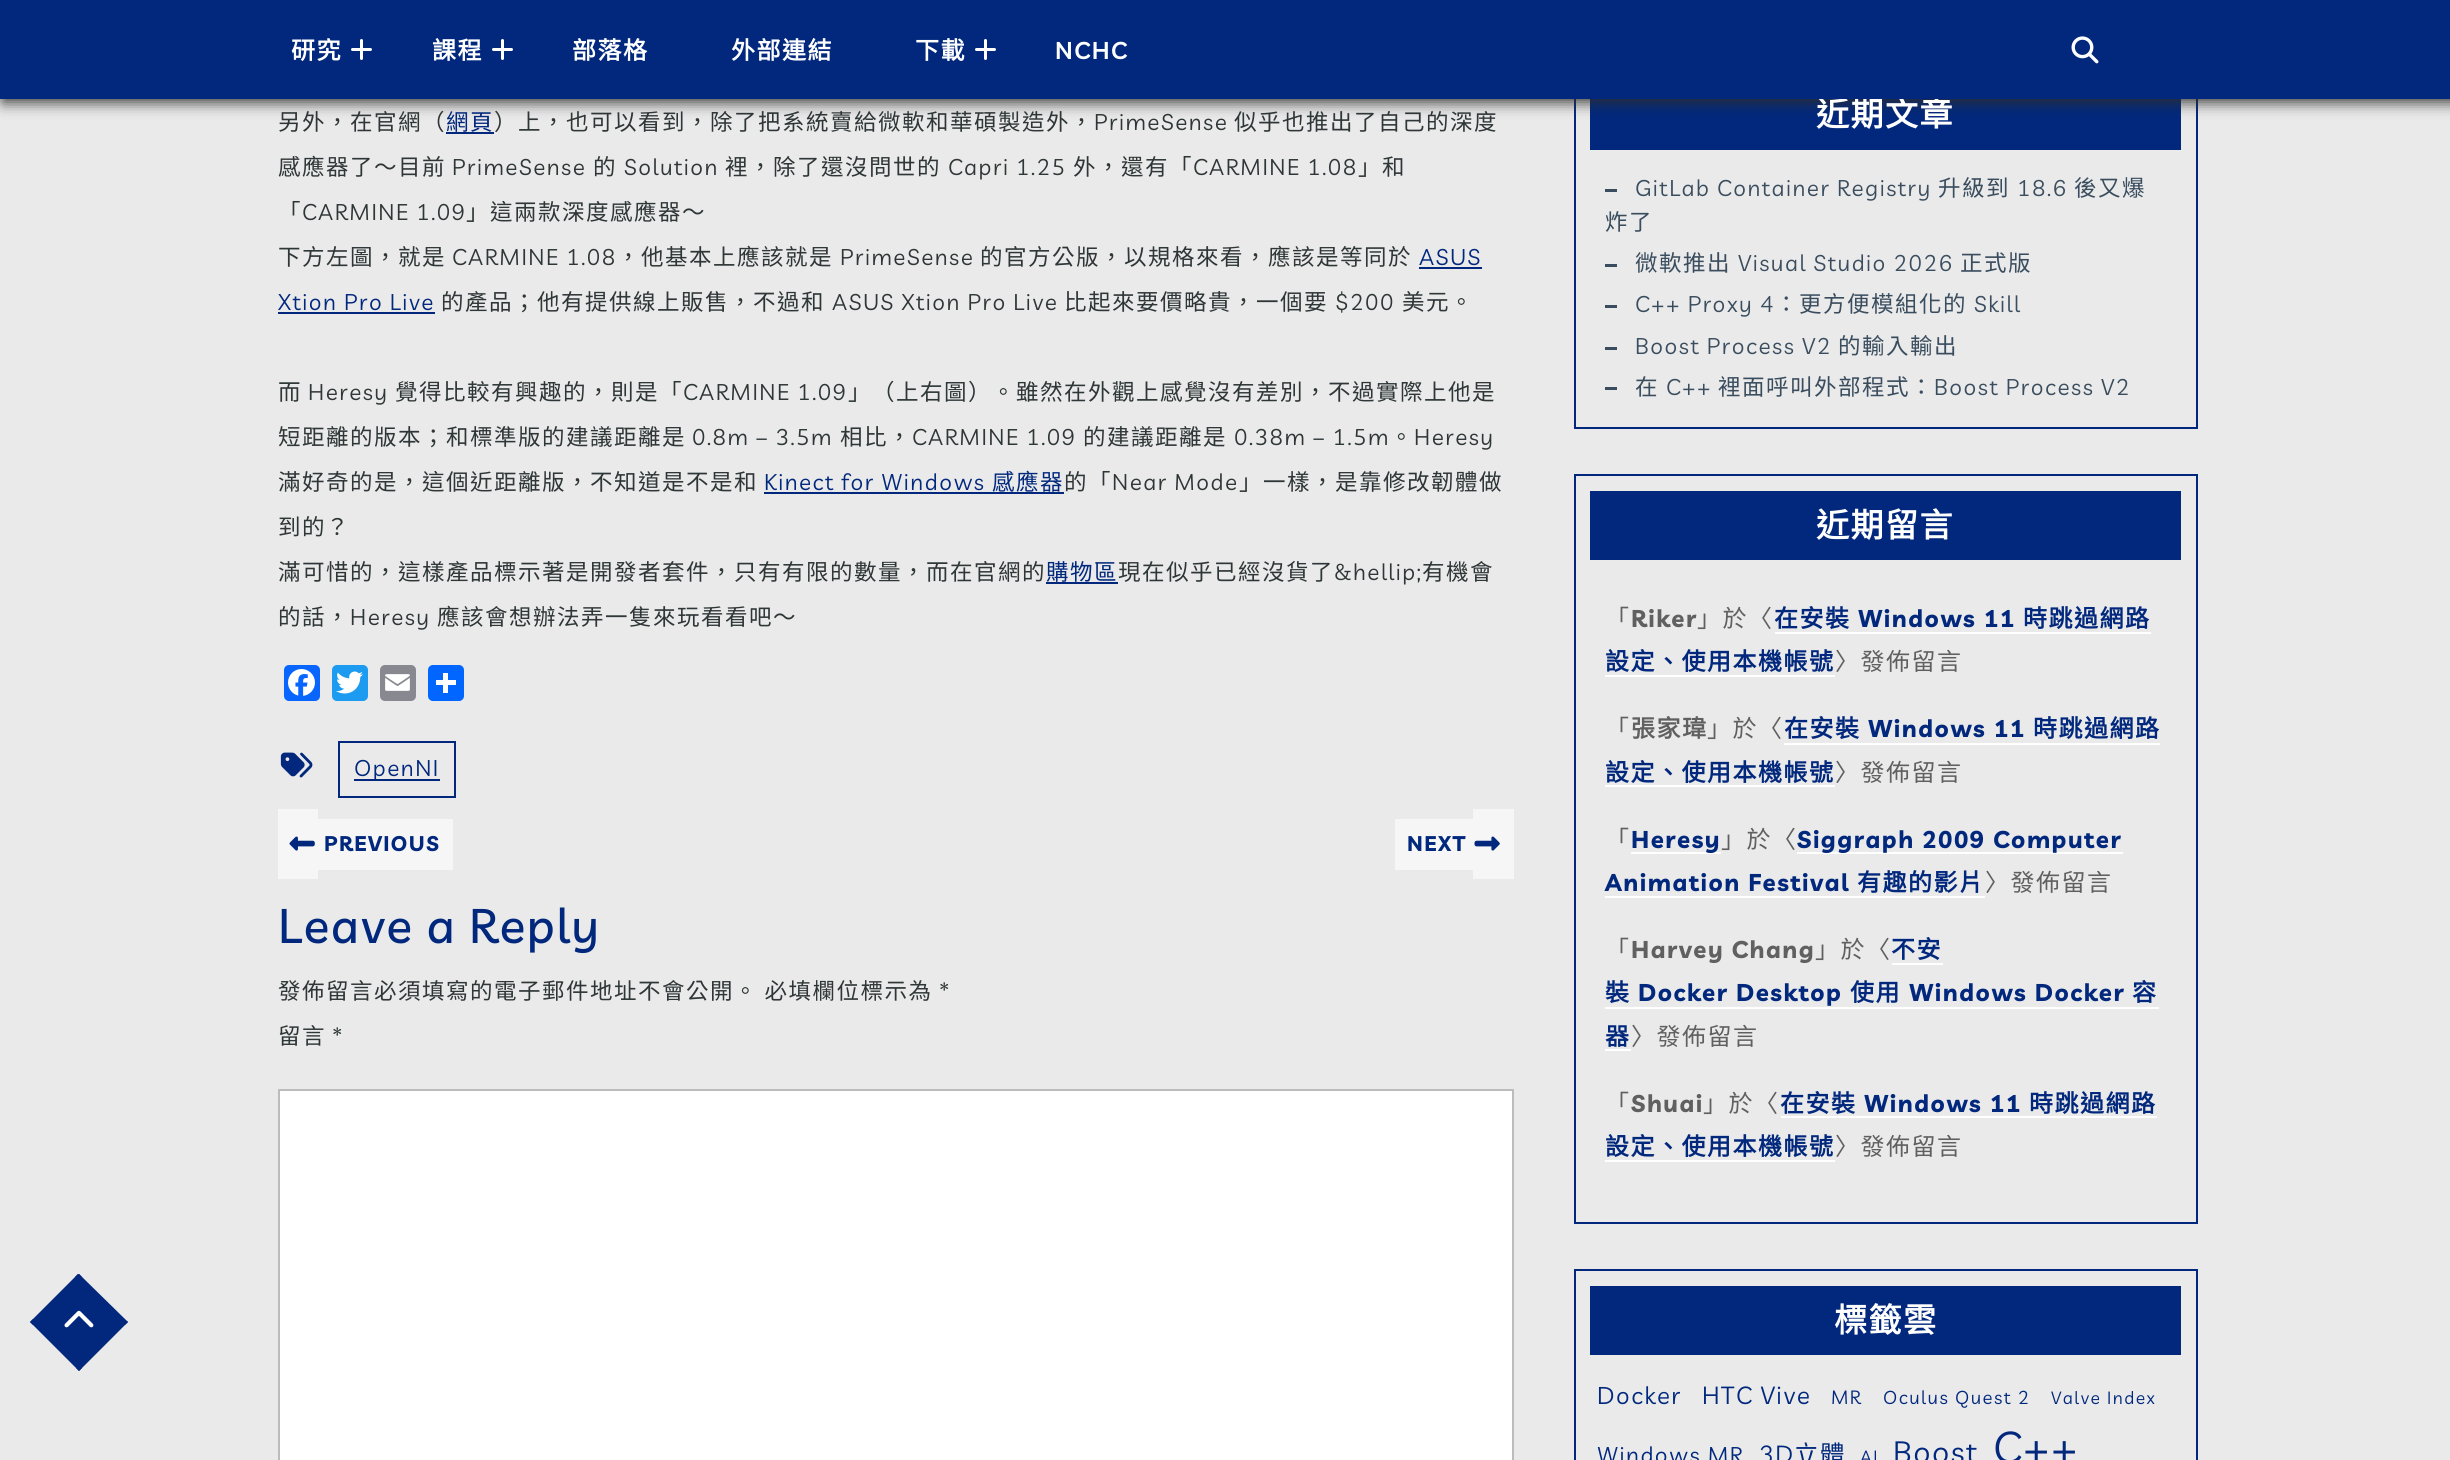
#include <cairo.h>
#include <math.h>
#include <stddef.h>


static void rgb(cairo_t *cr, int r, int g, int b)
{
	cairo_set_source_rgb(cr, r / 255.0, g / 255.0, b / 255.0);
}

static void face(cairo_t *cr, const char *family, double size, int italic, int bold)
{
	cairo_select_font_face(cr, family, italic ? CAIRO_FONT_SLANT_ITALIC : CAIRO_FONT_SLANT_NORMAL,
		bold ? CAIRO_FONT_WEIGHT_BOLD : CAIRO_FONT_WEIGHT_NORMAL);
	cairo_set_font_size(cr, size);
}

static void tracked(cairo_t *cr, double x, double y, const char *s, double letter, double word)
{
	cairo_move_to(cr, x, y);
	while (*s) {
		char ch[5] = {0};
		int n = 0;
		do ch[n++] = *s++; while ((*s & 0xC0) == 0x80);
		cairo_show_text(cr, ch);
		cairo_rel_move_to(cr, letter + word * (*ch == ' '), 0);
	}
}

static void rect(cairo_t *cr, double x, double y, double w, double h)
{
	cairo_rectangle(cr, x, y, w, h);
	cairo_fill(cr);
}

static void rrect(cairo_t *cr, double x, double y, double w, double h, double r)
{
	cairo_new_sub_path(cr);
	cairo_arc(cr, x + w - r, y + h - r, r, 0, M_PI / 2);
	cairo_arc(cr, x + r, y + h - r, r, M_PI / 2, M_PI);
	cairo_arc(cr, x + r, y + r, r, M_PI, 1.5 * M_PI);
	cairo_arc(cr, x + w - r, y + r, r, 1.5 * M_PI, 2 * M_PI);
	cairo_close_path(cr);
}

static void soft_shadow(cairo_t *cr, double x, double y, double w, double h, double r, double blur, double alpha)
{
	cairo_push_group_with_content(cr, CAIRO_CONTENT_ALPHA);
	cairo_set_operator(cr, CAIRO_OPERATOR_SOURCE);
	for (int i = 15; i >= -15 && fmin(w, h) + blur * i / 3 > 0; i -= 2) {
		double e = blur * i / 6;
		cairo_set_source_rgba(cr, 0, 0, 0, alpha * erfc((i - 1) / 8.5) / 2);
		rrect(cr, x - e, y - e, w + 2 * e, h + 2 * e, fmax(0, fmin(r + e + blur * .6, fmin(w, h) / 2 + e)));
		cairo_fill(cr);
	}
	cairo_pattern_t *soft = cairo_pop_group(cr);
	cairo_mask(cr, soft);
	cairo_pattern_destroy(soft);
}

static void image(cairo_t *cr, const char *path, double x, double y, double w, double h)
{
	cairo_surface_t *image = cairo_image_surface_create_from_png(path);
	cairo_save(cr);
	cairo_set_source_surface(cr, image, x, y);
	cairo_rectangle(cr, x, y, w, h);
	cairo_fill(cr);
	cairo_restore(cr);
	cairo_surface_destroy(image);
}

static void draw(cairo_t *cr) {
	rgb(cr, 234, 234, 234);
	cairo_paint(cr);
	cairo_rectangle(cr, 1575, 64, 622, 364);
	rgb(cr, 1, 40, 125);
	cairo_stroke(cr);
	rect(cr, 1590, 99, 591, 51);
	rgb(cr, 45, 45, 45);
	soft_shadow(cr, 3, 3, 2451, 99, 0, 7.5, 1);
	face(cr, "Noto Sans CJK TC", 33, 0, 1);
	rgb(cr, 255, 255, 255);
	tracked(cr, 1816, 126, "近期文章", 1.5, 0);
	rgb(cr, 1, 40, 125);
	rect(cr, 0, 0, 2450, 99);
	face(cr, "Noto Sans CJK TC", 24, 0, 1);
	rgb(cr, 255, 255, 255);
	tracked(cr, 291, 59, "研究", 1.5, 0);
	image(cr, "image0.png", 351, 39, 21, 21);
	tracked(cr, 432, 59, "課程", 1.5, 0);
	image(cr, "image0.png", 492, 39, 21, 21);
	tracked(cr, 572, 59, "部落格", 1.5, 0);
	tracked(cr, 731, 59, "外部連結", 1.5, 0);
	tracked(cr, 915, 59, "下載", 1.5, 0);
	image(cr, "image0.png", 975, 39, 21, 21);
	face(cr, "Livvic SemiBold", 24, 0, 0);
	tracked(cr, 1055, 59, "NCHC", 1.5, 0);
	image(cr, "image1.png", 2071, 36, 28, 28);
	rgb(cr, 1, 40, 125);
	cairo_new_path(cr);
	cairo_move_to(cr, 79, 1274);
	cairo_line_to(cr, 128, 1322);
	cairo_line_to(cr, 79, 1371);
	cairo_line_to(cr, 30, 1322);
	cairo_line_to(cr, 78, 1274);
	cairo_close_path(cr);
	cairo_fill(cr);
	cairo_set_fill_rule(cr, CAIRO_FILL_RULE_EVEN_ODD);
	cairo_new_path(cr);
	cairo_move_to(cr, 79, 1274);
	cairo_line_to(cr, 78, 1274);
	cairo_line_to(cr, 75, 1277);
	cairo_line_to(cr, 82, 1277);
	cairo_close_path(cr);
	cairo_move_to(cr, 125, 1320);
	cairo_line_to(cr, 125, 1325);
	cairo_line_to(cr, 128, 1322);
	cairo_close_path(cr);
	cairo_move_to(cr, 82, 1368);
	cairo_line_to(cr, 79, 1371);
	cairo_line_to(cr, 76, 1368);
	cairo_close_path(cr);
	cairo_move_to(cr, 33, 1325);
	cairo_line_to(cr, 30, 1322);
	cairo_line_to(cr, 33, 1319);
	cairo_close_path(cr);
	cairo_fill(cr);
	image(cr, "image2.png", 64, 1310, 30, 18);
	face(cr, "Noto Sans CJK TC", 22.5, 0, 0);
	rgb(cr, 47, 54, 55);
	tracked(cr, 278, 130, "另外，在官網（", 1.5, 0);
	rgb(cr, 1, 40, 125);
	tracked(cr, 446, 130, "網頁", 1.5, 0);
	rect(cr, 446, 132, 48, 2);
	rgb(cr, 47, 54, 55);
	tracked(cr, 494, 130, "）上，也可以看到，除了把系統賣給微軟和華碩製造外，", 1.5, 0);
	face(cr, "Livvic", 22.5, 0, 0);
	tracked(cr, 1094, 130, "PrimeSense", 1.5, 0);
	face(cr, "Noto Sans CJK TC", 22.5, 0, 0);
	tracked(cr, 1234, 130, "似乎也推出了自己的深度", 1.5, 0);
	tracked(cr, 278, 175, "感應器了～目前", 1.5, 0);
	face(cr, "Livvic", 22.5, 0, 0);
	tracked(cr, 452, 175, "PrimeSense", 1.5, 0);
	face(cr, "Noto Sans CJK TC", 22.5, 0, 0);
	tracked(cr, 593, 175, "的", 1.5, 0);
	face(cr, "Livvic", 22.5, 0, 0);
	tracked(cr, 624, 175, "Solution", 1.5, 0);
	face(cr, "Noto Sans CJK TC", 22.5, 0, 0);
	tracked(cr, 725, 175, "裡，除了還沒問世的", 1.5, 0);
	face(cr, "Livvic", 22.5, 0, 0);
	tracked(cr, 948, 175, "Capri 1.25", 1.5, 0);
	face(cr, "Noto Sans CJK TC", 22.5, 0, 0);
	tracked(cr, 1073, 175, "外，還有「", 1.5, 0);
	face(cr, "Livvic", 22.5, 0, 0);
	tracked(cr, 1193, 175, "CARMINE 1.08", 1.5, 0);
	face(cr, "Noto Sans CJK TC", 22.5, 0, 0);
	tracked(cr, 1358, 175, "」和", 1.5, 0);
	tracked(cr, 278, 220, "「", 1.5, 0);
	face(cr, "Livvic", 22.5, 0, 0);
	tracked(cr, 302, 220, "CARMINE 1.09", 1.5, 0);
	face(cr, "Noto Sans CJK TC", 22.5, 0, 0);
	tracked(cr, 466, 220, "」這兩款深度感應器～", 1.5, 0);
	tracked(cr, 278, 265, "下方左圖，就是", 1.5, 0);
	face(cr, "Livvic", 22.5, 0, 0);
	tracked(cr, 452, 265, "CARMINE 1.08", 1.5, 0);
	face(cr, "Noto Sans CJK TC", 22.5, 0, 0);
	tracked(cr, 617, 265, "，他基本上應該就是", 1.5, 0);
	face(cr, "Livvic", 22.5, 0, 0);
	tracked(cr, 840, 265, "PrimeSense", 1.5, 0);
	face(cr, "Noto Sans CJK TC", 22.5, 0, 0);
	tracked(cr, 980, 265, "的官方公版，以規格來看，應該是等同於", 1.5, 0);
	face(cr, "Livvic", 22.5, 0, 0);
	rgb(cr, 1, 40, 125);
	tracked(cr, 1419, 265, "ASUS", 1.5, 0);
	rect(cr, 1419, 267, 63, 2);
	tracked(cr, 278, 310, "Xtion Pro Live", 1.5, 0);
	rect(cr, 278, 312, 157, 2);
	face(cr, "Noto Sans CJK TC", 22.5, 0, 0);
	rgb(cr, 47, 54, 55);
	tracked(cr, 441, 310, "的產品；他有提供線上販售，不過和", 1.5, 0);
	face(cr, "Livvic", 22.5, 0, 0);
	tracked(cr, 832, 310, "ASUS Xtion Pro Live", 1.5, 0);
	face(cr, "Noto Sans CJK TC", 22.5, 0, 0);
	tracked(cr, 1064, 310, "比起來要價略貴，一個要", 1.5, 0);
	face(cr, "Livvic", 22.5, 0, 0);
	tracked(cr, 1335, 310, "$200", 1.5, 0);
	face(cr, "Noto Sans CJK TC", 22.5, 0, 0);
	tracked(cr, 1402, 310, "美元。", 1.5, 0);
	tracked(cr, 278, 400, "而", 1.5, 0);
	face(cr, "Livvic", 22.5, 0, 0);
	tracked(cr, 308, 400, "Heresy", 1.5, 0);
	face(cr, "Noto Sans CJK TC", 22.5, 0, 0);
	tracked(cr, 395, 400, "覺得比較有興趣的，則是「", 1.5, 0);
	face(cr, "Livvic", 22.5, 0, 0);
	tracked(cr, 683, 400, "CARMINE 1.09", 1.5, 0);
	face(cr, "Noto Sans CJK TC", 22.5, 0, 0);
	tracked(cr, 848, 400, "」（上右圖）。雖然在外觀上感覺沒有差別，不過實際上他是", 1.5, 0);
	tracked(cr, 278, 445, "短距離的版本；和標準版的建議距離是", 1.5, 0);
	face(cr, "Livvic", 22.5, 0, 0);
	tracked(cr, 692, 445, "0.8m – 3.5m", 1.5, 0);
	face(cr, "Noto Sans CJK TC", 22.5, 0, 0);
	tracked(cr, 840, 445, "相比，", 1.5, 0);
	face(cr, "Livvic", 22.5, 0, 0);
	tracked(cr, 912, 445, "CARMINE 1.09", 1.5, 0);
	face(cr, "Noto Sans CJK TC", 22.5, 0, 0);
	tracked(cr, 1083, 445, "的建議距離是", 1.5, 0);
	face(cr, "Livvic", 22.5, 0, 0);
	tracked(cr, 1234, 445, "0.38m – 1.5m", 1.5, 0);
	face(cr, "Noto Sans CJK TC", 22.5, 0, 0);
	tracked(cr, 1390, 445, "。", 1.5, 0);
	face(cr, "Livvic", 22.5, 0, 0);
	tracked(cr, 1414, 445, "Heresy", 1.5, 0);
	face(cr, "Noto Sans CJK TC", 22.5, 0, 0);
	tracked(cr, 278, 490, "滿好奇的是，這個近距離版，不知道是不是和", 1.5, 0);
	face(cr, "Livvic", 22.5, 0, 0);
	rgb(cr, 1, 40, 125);
	tracked(cr, 764, 490, "Kinect for Windows", 1.5, 0);
	rect(cr, 764, 492, 300, 2);
	face(cr, "Noto Sans CJK TC", 22.5, 0, 0);
	tracked(cr, 992, 490, "感應器", 1.5, 0);
	rgb(cr, 47, 54, 55);
	tracked(cr, 1064, 490, "的「", 1.5, 0);
	face(cr, "Livvic", 22.5, 0, 0);
	tracked(cr, 1112, 490, "Near Mode", 1.5, 0);
	face(cr, "Noto Sans CJK TC", 22.5, 0, 0);
	tracked(cr, 1239, 490, "」一樣，是靠修改韌體做", 1.5, 0);
	tracked(cr, 278, 535, "到的？", 1.5, 0);
	tracked(cr, 278, 580, "滿可惜的，這樣產品標示著是開發者套件，只有有限的數量，而在官網的", 1.5, 0);
	rgb(cr, 1, 40, 125);
	tracked(cr, 1046, 580, "購物區", 1.5, 0);
	rect(cr, 1046, 582, 72, 2);
	rgb(cr, 47, 54, 55);
	tracked(cr, 1118, 580, "現在似乎已經沒貨了", 1.5, 0);
	face(cr, "Livvic", 22.5, 0, 0);
	tracked(cr, 1334, 580, "&hellip;", 1.5, 0);
	face(cr, "Noto Sans CJK TC", 22.5, 0, 0);
	tracked(cr, 1422, 580, "有機會", 1.5, 0);
	tracked(cr, 278, 625, "的話，", 1.5, 0);
	face(cr, "Livvic", 22.5, 0, 0);
	tracked(cr, 350, 625, "Heresy", 1.5, 0);
	face(cr, "Noto Sans CJK TC", 22.5, 0, 0);
	tracked(cr, 437, 625, "應該會想辦法弄一隻來玩看看吧～", 1.5, 0);
	rgb(cr, 8, 102, 255);
	rrect(cr, 284, 665, 36, 36, 5);
	cairo_fill(cr);
	image(cr, "image3.png", 288, 669, 27, 27);
	rgb(cr, 29, 155, 240);
	rrect(cr, 332, 665, 36, 36, 5);
	cairo_fill(cr);
	image(cr, "image4.png", 336, 671, 27, 23);
	rgb(cr, 136, 137, 144);
	rrect(cr, 380, 665, 36, 36, 5);
	cairo_fill(cr);
	image(cr, "image5.png", 385, 674, 25, 17);
	rgb(cr, 1, 102, 255);
	rrect(cr, 428, 665, 36, 36, 5);
	cairo_fill(cr);
	rgb(cr, 255, 255, 255);
	rect(cr, 443, 673, 5, 20);
	rect(cr, 436, 680, 20, 5);
	image(cr, "image6.png", 280, 752, 33, 26);
	cairo_rectangle(cr, 339, 742, 116, 55);
	rgb(cr, 1, 40, 125);
	cairo_stroke(cr);
	rect(cr, 354, 779, 86, 2);
	face(cr, "Livvic", 22.5, 0, 0);
	tracked(cr, 354, 776, "OpenNI", 1.5, 0);
	rgb(cr, 246, 246, 246);
	rect(cr, 278, 809, 40, 70);
	rect(cr, 318, 819, 135, 51);
	image(cr, "image7.png", 289, 836, 26, 15);
	face(cr, "Livvic", 21, 0, 1);
	rgb(cr, 1, 40, 125);
	tracked(cr, 324, 851, "PREVIOUS", 1.5, 0);
	rgb(cr, 246, 246, 246);
	rect(cr, 1395, 819, 78, 51);
	rect(cr, 1473, 809, 41, 70);
	rgb(cr, 1, 40, 125);
	tracked(cr, 1407, 851, "NEXT", 1.5, 0);
	image(cr, "image8.png", 1474, 836, 26, 15);
	face(cr, "Livvic Medium", 48, 0, 0);
	tracked(cr, 278, 943, "Leave a Reply", 1.5, 0);
	face(cr, "Noto Sans CJK TC", 22.5, 0, 0);
	rgb(cr, 47, 54, 55);
	tracked(cr, 278, 999, "發佈留言必須填寫的電子郵件地址不會公開。 必填欄位標示為", 1.5, 0);
	face(cr, "Livvic", 22.5, 0, 0);
	tracked(cr, 939, 999, "*", 1.5, 0);
	face(cr, "Noto Sans CJK TC", 22.5, 0, 0);
	tracked(cr, 278, 1044, "留言", 1.5, 0);
	face(cr, "Livvic", 22.5, 0, 0);
	tracked(cr, 332, 1044, "*", 1.5, 0);
	rgb(cr, 255, 255, 255);
	cairo_rectangle(cr, 279, 1090, 1234, 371);
	cairo_fill_preserve(cr);
	rgb(cr, 188, 188, 188);
	cairo_stroke(cr);
	rgb(cr, 58, 77, 94);
	rect(cr, 1605, 189, 12, 3);
	tracked(cr, 1635, 196, "GitLab Container Registry", 1.5, 0);
	face(cr, "Noto Sans CJK TC", 22.5, 0, 0);
	tracked(cr, 1938, 196, "升級到", 1.5, 0);
	face(cr, "Livvic", 22.5, 0, 0);
	tracked(cr, 2017, 196, "18.6", 1.5, 0);
	face(cr, "Noto Sans CJK TC", 22.5, 0, 0);
	tracked(cr, 2074, 196, "後又爆", 1.5, 0);
	tracked(cr, 1605, 230, "炸了", 1.5, 0);
	rect(cr, 1605, 264, 12, 3);
	tracked(cr, 1635, 271, "微軟推出", 1.5, 0);
	face(cr, "Livvic", 22.5, 0, 0);
	tracked(cr, 1738, 271, "Visual Studio 2026", 1.5, 0);
	face(cr, "Noto Sans CJK TC", 22.5, 0, 0);
	tracked(cr, 1960, 271, "正式版", 1.5, 0);
	rect(cr, 1605, 305, 12, 3);
	face(cr, "Livvic", 22.5, 0, 0);
	tracked(cr, 1635, 312, "C++ Proxy 4", 1.5, 0);
	face(cr, "Noto Sans CJK TC", 22.5, 0, 0);
	tracked(cr, 1775, 312, "：更方便模組化的", 1.5, 0);
	face(cr, "Livvic", 22.5, 0, 0);
	tracked(cr, 1974, 312, "Skill", 1.5, 0);
	rect(cr, 1605, 347, 12, 3);
	tracked(cr, 1635, 354, "Boost Process V2", 1.5, 0);
	face(cr, "Noto Sans CJK TC", 22.5, 0, 0);
	tracked(cr, 1838, 354, "的輸入輸出", 1.5, 0);
	rect(cr, 1605, 387, 12, 3);
	tracked(cr, 1635, 395, "在", 1.5, 0);
	face(cr, "Livvic", 22.5, 0, 0);
	tracked(cr, 1666, 395, "C++", 1.5, 0);
	face(cr, "Noto Sans CJK TC", 22.5, 0, 0);
	tracked(cr, 1718, 395, "裡面呼叫外部程式：", 1.5, 0);
	face(cr, "Livvic", 22.5, 0, 0);
	tracked(cr, 1934, 395, "Boost Process V2", 1.5, 0);
	cairo_rectangle(cr, 1575, 475, 622, 748);
	rgb(cr, 1, 40, 125);
	cairo_stroke(cr);
	rect(cr, 1590, 491, 591, 69);
	face(cr, "Noto Sans CJK TC", 33, 0, 1);
	rgb(cr, 255, 255, 255);
	tracked(cr, 1816, 537, "近期留言", 1.5, 0);
	face(cr, "Noto Sans CJK TC", 24, 0, 0);
	rgb(cr, 96, 96, 96);
	tracked(cr, 1605, 627, "「", 1.5, 0);
	face(cr, "Livvic", 24, 0, 1);
	tracked(cr, 1631, 627, "Riker", 1.5, 0);
	face(cr, "Noto Sans CJK TC", 24, 0, 0);
	tracked(cr, 1697, 627, "」於〈", 1.5, 0);
	face(cr, "Noto Sans CJK TC", 24, 0, 1);
	rgb(cr, 1, 40, 125);
	tracked(cr, 1774, 627, "在安裝", 1.5, 0);
	face(cr, "Livvic", 24, 0, 1);
	tracked(cr, 1858, 627, "Windows 11", 1.5, 0);
	rgb(cr, 255, 255, 255);
	rect(cr, 1775, 632, 376, 2);
	face(cr, "Noto Sans CJK TC", 24, 0, 1);
	rgb(cr, 1, 40, 125);
	tracked(cr, 2023, 627, "時跳過網路", 1.5, 0);
	tracked(cr, 1605, 670, "設定、使用本機帳號", 1.5, 0);
	rgb(cr, 255, 255, 255);
	rect(cr, 1605, 675, 230, 2);
	face(cr, "Noto Sans CJK TC", 24, 0, 0);
	rgb(cr, 96, 96, 96);
	tracked(cr, 1835, 670, "〉發佈留言", 1.5, 0);
	tracked(cr, 1605, 737, "「", 1.5, 0);
	face(cr, "Noto Sans CJK TC", 24, 0, 1);
	tracked(cr, 1631, 737, "張家瑋", 1.5, 0);
	face(cr, "Noto Sans CJK TC", 24, 0, 0);
	tracked(cr, 1707, 737, "」於〈", 1.5, 0);
	face(cr, "Noto Sans CJK TC", 24, 0, 1);
	rgb(cr, 1, 40, 125);
	tracked(cr, 1784, 737, "在安裝", 1.5, 0);
	face(cr, "Livvic", 24, 0, 1);
	tracked(cr, 1868, 737, "Windows 11", 1.5, 0);
	rgb(cr, 255, 255, 255);
	rect(cr, 1784, 743, 376, 2);
	face(cr, "Noto Sans CJK TC", 24, 0, 1);
	rgb(cr, 1, 40, 125);
	tracked(cr, 2033, 737, "時跳過網路", 1.5, 0);
	tracked(cr, 1605, 781, "設定、使用本機帳號", 1.5, 0);
	rgb(cr, 255, 255, 255);
	rect(cr, 1605, 785, 230, 2);
	face(cr, "Noto Sans CJK TC", 24, 0, 0);
	rgb(cr, 96, 96, 96);
	tracked(cr, 1835, 781, "〉發佈留言", 1.5, 0);
	tracked(cr, 1605, 848, "「", 1.5, 0);
	rgb(cr, 255, 255, 255);
	rect(cr, 1631, 852, 90, 2);
	face(cr, "Livvic", 24, 0, 1);
	rgb(cr, 1, 40, 125);
	tracked(cr, 1631, 848, "Heresy", 1.5, 0);
	face(cr, "Noto Sans CJK TC", 24, 0, 0);
	rgb(cr, 96, 96, 96);
	tracked(cr, 1721, 848, "」於〈", 1.5, 0);
	rgb(cr, 255, 255, 255);
	rect(cr, 1797, 852, 326, 2);
	face(cr, "Livvic", 24, 0, 1);
	rgb(cr, 1, 40, 125);
	tracked(cr, 1797, 848, "Siggraph 2009 Computer", 1.5, 0);
	tracked(cr, 1605, 891, "Animation Festival", 1.5, 0);
	rgb(cr, 255, 255, 255);
	rect(cr, 1605, 896, 380, 2);
	face(cr, "Noto Sans CJK TC", 24, 0, 1);
	rgb(cr, 1, 40, 125);
	tracked(cr, 1857, 891, "有趣的影片", 1.5, 0);
	face(cr, "Noto Sans CJK TC", 24, 0, 0);
	rgb(cr, 96, 96, 96);
	tracked(cr, 1985, 891, "〉發佈留言", 1.5, 0);
	tracked(cr, 1605, 958, "「", 1.5, 0);
	face(cr, "Livvic", 24, 0, 1);
	tracked(cr, 1631, 958, "Harvey Chang", 1.5, 0);
	face(cr, "Noto Sans CJK TC", 24, 0, 0);
	tracked(cr, 1815, 958, "」於〈", 1.5, 0);
	face(cr, "Noto Sans CJK TC", 24, 0, 1);
	rgb(cr, 1, 40, 125);
	tracked(cr, 1891, 958, "不安", 1.5, 0);
	rgb(cr, 255, 255, 255);
	rect(cr, 1892, 963, 51, 2);
	rgb(cr, 1, 40, 125);
	tracked(cr, 1605, 1001, "裝", 1.5, 0);
	face(cr, "Livvic", 24, 0, 1);
	tracked(cr, 1638, 1001, "Docker Desktop", 1.5, 0);
	rgb(cr, 255, 255, 255);
	rect(cr, 1605, 1007, 554, 2);
	face(cr, "Noto Sans CJK TC", 24, 0, 1);
	rgb(cr, 1, 40, 125);
	tracked(cr, 1850, 1001, "使用", 1.5, 0);
	face(cr, "Livvic", 24, 0, 1);
	tracked(cr, 1909, 1001, "Windows Docker", 1.5, 0);
	face(cr, "Noto Sans CJK TC", 24, 0, 1);
	tracked(cr, 2132, 1001, "容", 1.5, 0);
	tracked(cr, 1605, 1045, "器", 1.5, 0);
	rgb(cr, 255, 255, 255);
	rect(cr, 1605, 1049, 26, 2);
	face(cr, "Noto Sans CJK TC", 24, 0, 0);
	rgb(cr, 96, 96, 96);
	tracked(cr, 1631, 1045, "〉發佈留言", 1.5, 0);
	tracked(cr, 1605, 1112, "「", 1.5, 0);
	face(cr, "Livvic", 24, 0, 1);
	tracked(cr, 1631, 1112, "Shuai", 1.5, 0);
	face(cr, "Noto Sans CJK TC", 24, 0, 0);
	tracked(cr, 1703, 1112, "」於〈", 1.5, 0);
	face(cr, "Noto Sans CJK TC", 24, 0, 1);
	rgb(cr, 1, 40, 125);
	tracked(cr, 1780, 1112, "在安裝", 1.5, 0);
	face(cr, "Livvic", 24, 0, 1);
	tracked(cr, 1864, 1112, "Windows 11", 1.5, 0);
	rgb(cr, 255, 255, 255);
	rect(cr, 1781, 1116, 376, 2);
	face(cr, "Noto Sans CJK TC", 24, 0, 1);
	rgb(cr, 1, 40, 125);
	tracked(cr, 2029, 1112, "時跳過網路", 1.5, 0);
	tracked(cr, 1605, 1155, "設定、使用本機帳號", 1.5, 0);
	rgb(cr, 255, 255, 255);
	rect(cr, 1605, 1160, 230, 2);
	face(cr, "Noto Sans CJK TC", 24, 0, 0);
	rgb(cr, 96, 96, 96);
	tracked(cr, 1835, 1155, "〉發佈留言", 1.5, 0);
	cairo_rectangle(cr, 1575, 1270, 622, 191);
	rgb(cr, 1, 40, 125);
	cairo_stroke(cr);
	rect(cr, 1590, 1286, 591, 69);
	face(cr, "Noto Sans CJK TC", 33, 0, 1);
	rgb(cr, 255, 255, 255);
	tracked(cr, 1834, 1332, "標籤雲", 1.5, 0);
	face(cr, "Livvic", 24, 0, 0);
	rgb(cr, 1, 40, 125);
	tracked(cr, 1597, 1404, "Docker", 1.5, 0);
	face(cr, "Livvic", 24.5, 0, 0);
	tracked(cr, 1702, 1404, "HTC Vive", 1.5, 0);
	face(cr, "Livvic", 19, 0, 0);
	tracked(cr, 1831, 1404, "MR", 1.5, 0);
	face(cr, "Livvic", 18.5, 0, 0);
	tracked(cr, 1883, 1404, "Oculus Quest 2", 1.5, 0);
	face(cr, "Livvic", 17.5, 0, 0);
	tracked(cr, 2051, 1404, "Valve Index", 1.5, 0);
	face(cr, "Livvic", 22.5, 0, 0);
	tracked(cr, 1597, 1463, "Windows MR", 1.5, 0);
	face(cr, "Livvic", 24.5, 0, 0);
	tracked(cr, 1759, 1463, "3D", 1.5, 0);
	face(cr, "Noto Sans CJK TC", 24.5, 0, 0);
	tracked(cr, 1794, 1463, "立體", 1.5, 0);
	face(cr, "Livvic", 17.5, 0, 0);
	tracked(cr, 1860, 1463, "AI", 1.5, 0);
	face(cr, "Livvic", 30.5, 0, 0);
	tracked(cr, 1893, 1463, "Boost", 1.5, 0);
	face(cr, "Livvic", 44, 0, 0);
	tracked(cr, 1993, 1463, "C++", 1.5, 0);
}

int main(void) {
	cairo_surface_t *surface = cairo_image_surface_create(CAIRO_FORMAT_RGB24, 2450, 1460);
	cairo_t *cr = cairo_create(surface);
	cairo_font_options_t *options = cairo_font_options_create();
	cairo_font_options_set_hint_metrics(options, CAIRO_HINT_METRICS_OFF);
	cairo_font_options_set_hint_style(options, CAIRO_HINT_STYLE_NONE);
	cairo_set_font_options(cr, options);
	cairo_set_miter_limit(cr, 4);
	draw(cr);
	cairo_surface_write_to_png(surface, "render.png");
	cairo_font_options_destroy(options);
	cairo_destroy(cr);
	cairo_surface_destroy(surface);
	return 0;
}
